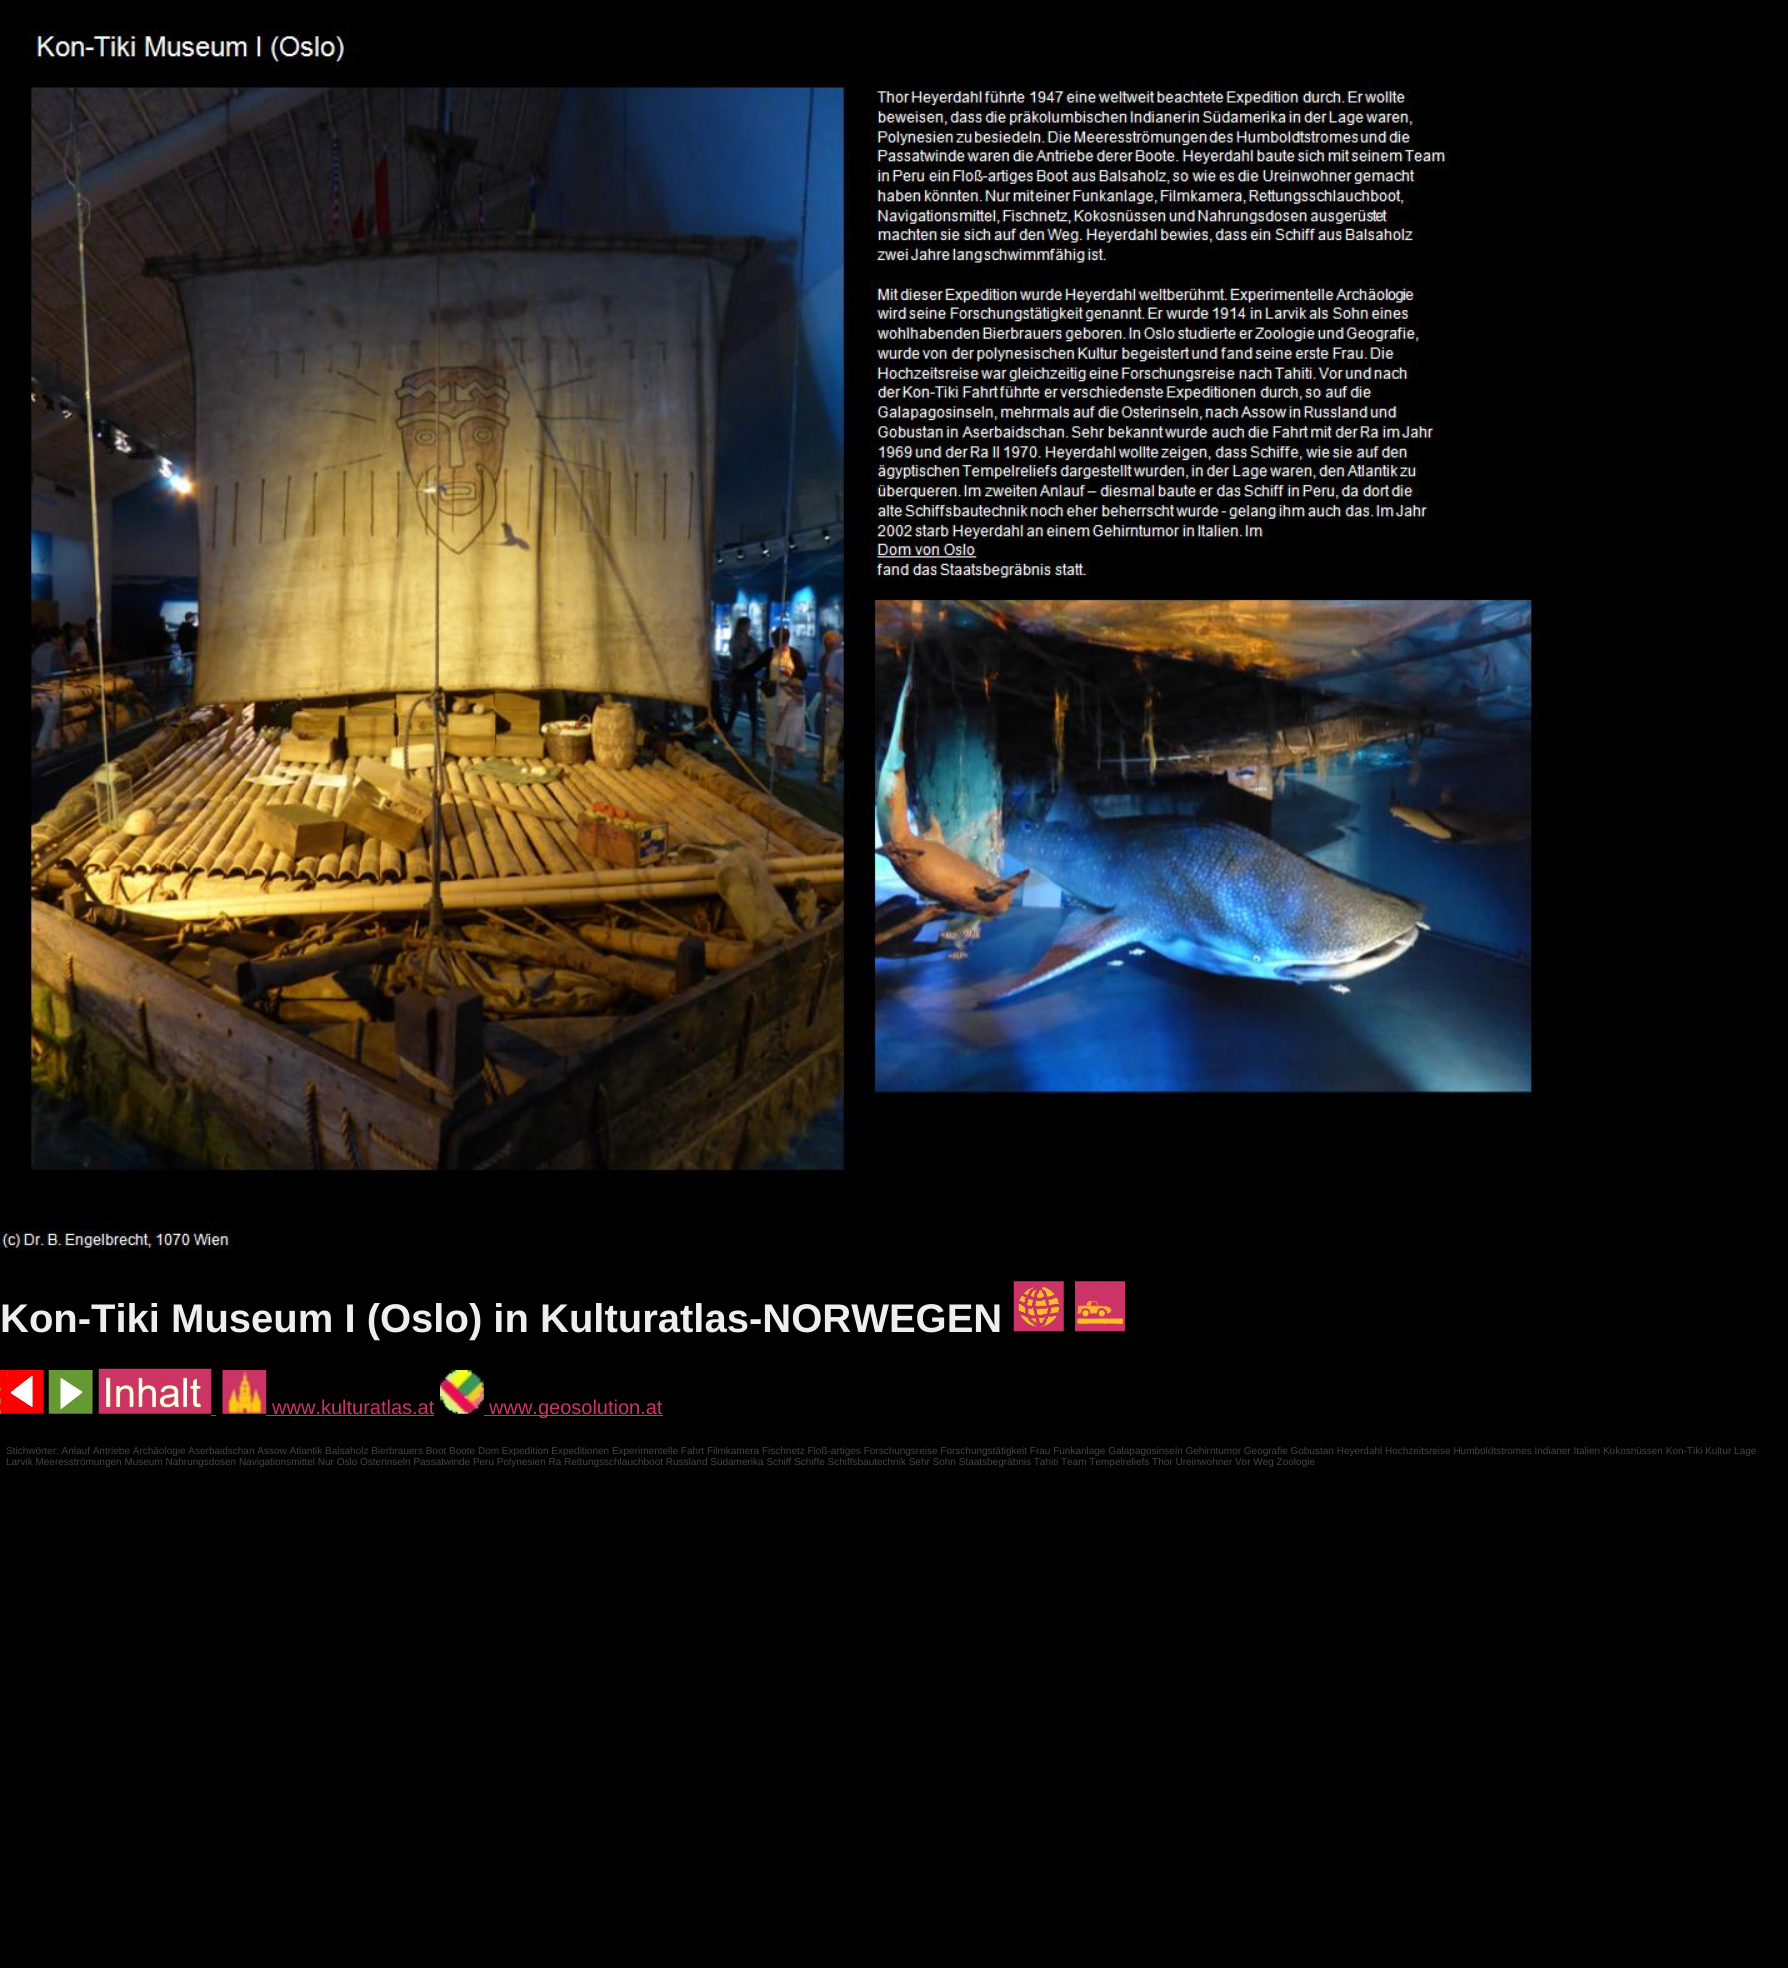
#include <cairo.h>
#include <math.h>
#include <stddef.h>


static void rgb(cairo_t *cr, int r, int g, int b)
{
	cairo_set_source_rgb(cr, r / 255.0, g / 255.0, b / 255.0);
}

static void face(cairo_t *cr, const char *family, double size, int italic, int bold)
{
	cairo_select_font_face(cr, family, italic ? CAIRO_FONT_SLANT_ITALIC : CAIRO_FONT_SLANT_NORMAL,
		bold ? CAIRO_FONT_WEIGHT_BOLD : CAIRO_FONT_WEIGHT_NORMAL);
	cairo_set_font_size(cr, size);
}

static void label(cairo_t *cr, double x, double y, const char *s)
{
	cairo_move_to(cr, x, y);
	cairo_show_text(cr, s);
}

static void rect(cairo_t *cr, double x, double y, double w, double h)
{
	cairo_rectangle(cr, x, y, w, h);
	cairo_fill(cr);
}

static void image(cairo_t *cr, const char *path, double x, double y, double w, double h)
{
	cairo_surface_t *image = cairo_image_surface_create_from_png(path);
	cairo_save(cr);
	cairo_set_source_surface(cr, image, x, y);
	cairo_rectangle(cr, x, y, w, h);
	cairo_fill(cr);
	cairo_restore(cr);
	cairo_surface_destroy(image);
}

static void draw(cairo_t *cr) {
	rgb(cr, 0, 0, 0);
	cairo_paint(cr);
	image(cr, "image0.png", 0, 21, 1540, 1229);
	face(cr, "Liberation Sans", 40, 0, 1);
	rgb(cr, 238, 238, 238);
	label(cr, 0, 1332, "Kon-Tiki Museum I (Oslo) in Kulturatlas-NORWEGEN");
	image(cr, "image1.png", 1013, 1281, 51, 51);
	image(cr, "image2.png", 1075, 1281, 50, 51);
	image(cr, "image3.png", 0, 1370, 44, 44);
	image(cr, "image4.png", 48, 1370, 45, 44);
	image(cr, "image5.png", 98, 1368, 114, 46);
	rgb(cr, 204, 51, 102);
	rect(cr, 211, 1415, 5, 1);
	image(cr, "image6.png", 222, 1370, 45, 44);
	face(cr, "Liberation Sans", 20, 0, 0);
	label(cr, 272, 1414, "www.kulturatlas.at");
	rect(cr, 266, 1415, 168, 1);
	image(cr, "image7.png", 440, 1370, 44, 44);
	rect(cr, 484, 1415, 179, 1);
	label(cr, 489, 1414, "www.geosolution.at");
	face(cr, "Liberation Sans", 10, 0, 0);
	rgb(cr, 68, 68, 68);
	label(cr, 6, 1454, "Stichwörter: Anlauf Antriebe Archäologie Aserbaidschan Assow Atlantik Balsaholz Bierbrauers Boot Boote Dom Expedition Expeditionen Experimentelle Fahrt Filmkamera Fischnetz Floß-artiges Forschungsreise Forschungstätigkeit Frau Funkanlage Galapagosinseln Gehirntumor Geografie Gobustan Heyerdahl Hochzeitsreise Humboldtstromes Indianer Italien Kokosnüssen Kon-Tiki Kultur Lage");
	label(cr, 6, 1465, "Larvik Meeresströmungen Museum Nahrungsdosen Navigationsmittel Nur Oslo Osterinseln Passatwinde Peru Polynesien Ra Rettungsschlauchboot Russland Südamerika Schiff Schiffe Schiffsbautechnik Sehr Sohn Staatsbegräbnis Tahiti Team Tempelreliefs Thor Ureinwohner Vor Weg Zoologie");
}

int main(void) {
	cairo_surface_t *surface = cairo_image_surface_create(CAIRO_FORMAT_RGB24, 1788, 1968);
	cairo_t *cr = cairo_create(surface);
	cairo_font_options_t *options = cairo_font_options_create();
	cairo_font_options_set_hint_metrics(options, CAIRO_HINT_METRICS_OFF);
	cairo_font_options_set_hint_style(options, CAIRO_HINT_STYLE_NONE);
	cairo_set_font_options(cr, options);
	cairo_set_miter_limit(cr, 4);
	draw(cr);
	cairo_surface_write_to_png(surface, "render.png");
	cairo_font_options_destroy(options);
	cairo_destroy(cr);
	cairo_surface_destroy(surface);
	return 0;
}
